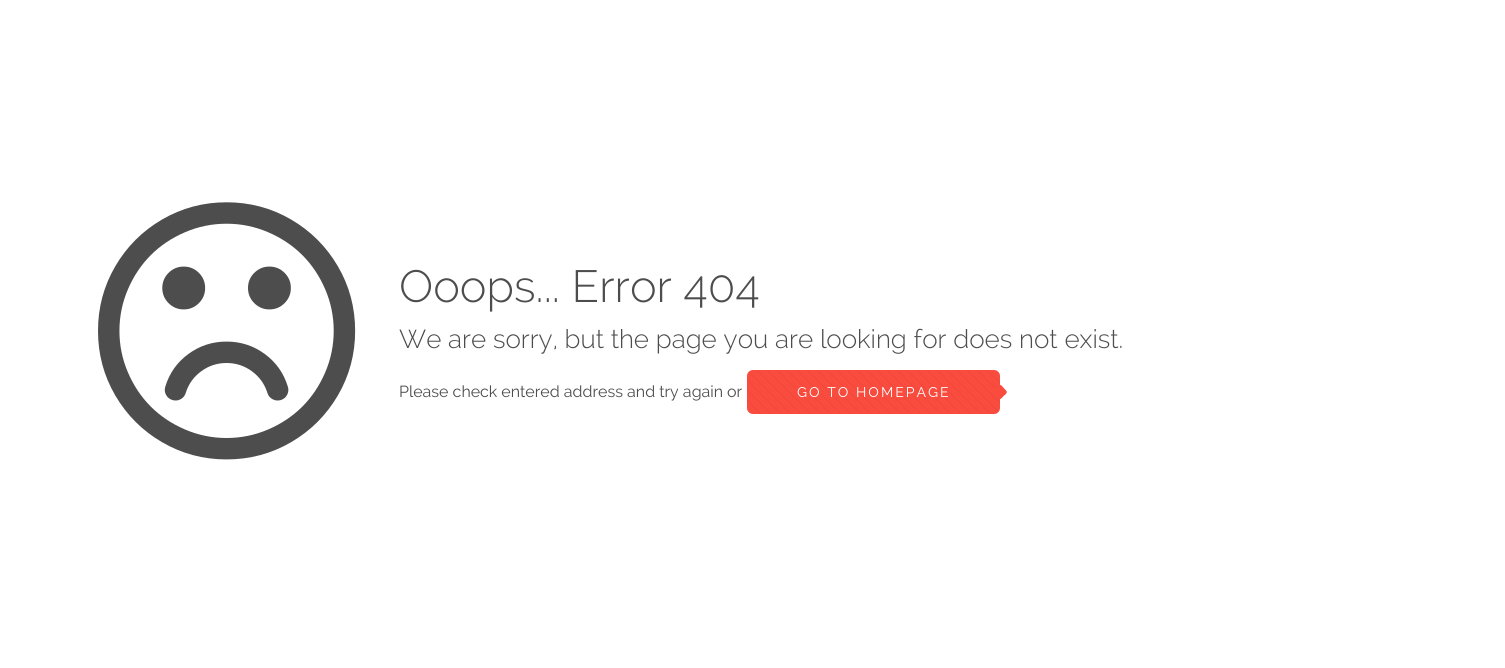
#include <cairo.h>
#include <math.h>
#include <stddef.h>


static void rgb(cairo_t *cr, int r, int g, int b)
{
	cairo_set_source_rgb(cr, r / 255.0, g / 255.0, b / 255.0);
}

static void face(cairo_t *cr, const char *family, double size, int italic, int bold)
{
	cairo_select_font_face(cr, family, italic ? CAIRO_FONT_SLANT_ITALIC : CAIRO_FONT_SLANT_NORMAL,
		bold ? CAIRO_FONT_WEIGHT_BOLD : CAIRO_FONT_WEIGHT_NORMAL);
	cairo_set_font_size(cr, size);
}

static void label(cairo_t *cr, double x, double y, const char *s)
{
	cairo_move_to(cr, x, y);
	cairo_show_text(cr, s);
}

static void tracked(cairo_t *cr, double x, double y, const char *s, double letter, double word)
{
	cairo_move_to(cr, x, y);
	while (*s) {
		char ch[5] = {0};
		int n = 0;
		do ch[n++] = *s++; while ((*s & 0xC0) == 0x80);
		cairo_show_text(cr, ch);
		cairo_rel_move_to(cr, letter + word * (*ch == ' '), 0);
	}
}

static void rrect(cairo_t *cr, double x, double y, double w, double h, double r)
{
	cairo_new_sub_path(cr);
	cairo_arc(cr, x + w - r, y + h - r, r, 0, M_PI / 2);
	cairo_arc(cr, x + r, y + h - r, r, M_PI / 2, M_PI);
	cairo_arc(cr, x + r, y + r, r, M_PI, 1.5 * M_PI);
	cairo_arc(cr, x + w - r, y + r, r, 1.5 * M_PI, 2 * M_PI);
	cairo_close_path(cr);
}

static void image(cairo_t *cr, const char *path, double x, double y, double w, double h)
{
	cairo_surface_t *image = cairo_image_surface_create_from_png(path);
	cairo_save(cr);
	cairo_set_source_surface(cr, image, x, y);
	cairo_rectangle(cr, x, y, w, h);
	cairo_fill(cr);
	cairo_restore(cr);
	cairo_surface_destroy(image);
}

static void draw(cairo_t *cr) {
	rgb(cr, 255, 255, 255);
	cairo_paint(cr);
	image(cr, "image0.png", 98, 202, 258, 258);
	face(cr, "Raleway Light", 45, 0, 0);
	rgb(cr, 77, 77, 77);
	label(cr, 399, 302, "Ooops... Error 404");
	face(cr, "Raleway Light", 26, 0, 0);
	label(cr, 399, 348, "We are sorry, but the page you are looking for does not exist.");
	face(cr, "Raleway", 16, 0, 0);
	label(cr, 399, 397, "Please check entered address and try again or");
	rgb(cr, 249, 76, 63);
	rrect(cr, 747, 370, 253, 44, 6);
	cairo_fill(cr);
	image(cr, "image1.png", 747, 370, 253, 44);
	face(cr, "Raleway", 14, 0, 0);
	rgb(cr, 255, 255, 255);
	tracked(cr, 797, 397, "GO TO HOMEPAGE", 2, 0);
	rgb(cr, 249, 76, 63);
	cairo_new_path(cr);
	cairo_move_to(cr, 1001.5, 385.5);
	cairo_line_to(cr, 1006.5, 391);
	cairo_curve_to(cr, 1007.5, 393, 1005, 395, 1003.5, 396);
	cairo_curve_to(cr, 1002, 398, 1000, 400.5, 997.5, 398.5);
	cairo_line_to(cr, 992.5, 393);
	cairo_curve_to(cr, 991.5, 391, 993.5, 389, 995, 388);
	cairo_curve_to(cr, 997, 386, 999, 383.5, 1001.5, 385.5);
	cairo_close_path(cr);
	cairo_fill(cr);
}

int main(void) {
	cairo_surface_t *surface = cairo_image_surface_create(CAIRO_FORMAT_RGB24, 1505, 668);
	cairo_t *cr = cairo_create(surface);
	cairo_font_options_t *options = cairo_font_options_create();
	cairo_font_options_set_hint_metrics(options, CAIRO_HINT_METRICS_OFF);
	cairo_font_options_set_hint_style(options, CAIRO_HINT_STYLE_NONE);
	cairo_set_font_options(cr, options);
	cairo_set_miter_limit(cr, 4);
	draw(cr);
	cairo_surface_write_to_png(surface, "render.png");
	cairo_font_options_destroy(options);
	cairo_destroy(cr);
	cairo_surface_destroy(surface);
	return 0;
}
